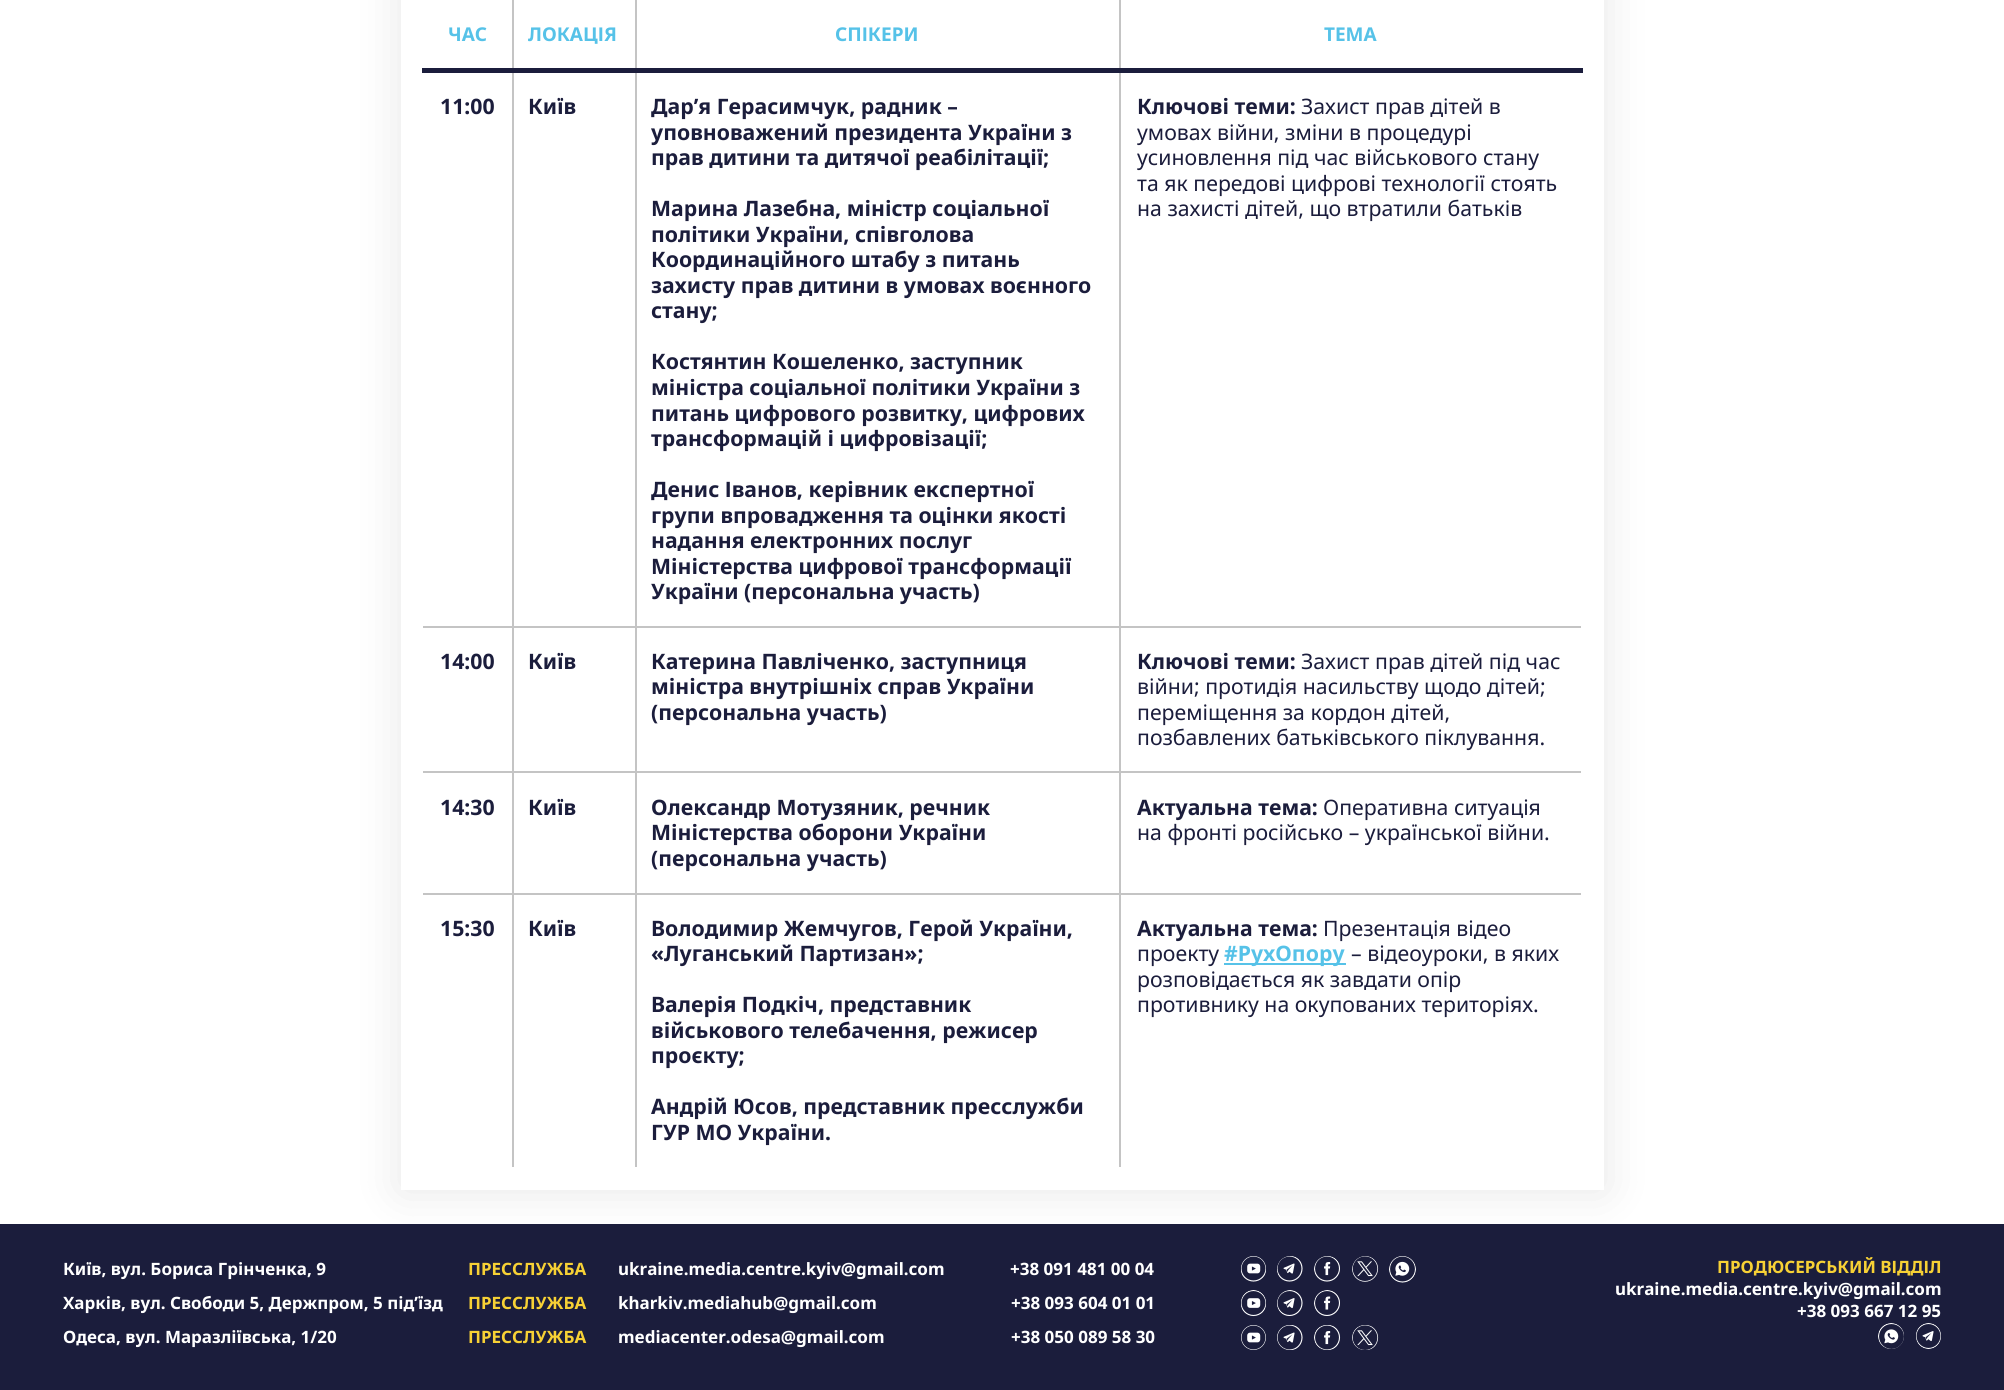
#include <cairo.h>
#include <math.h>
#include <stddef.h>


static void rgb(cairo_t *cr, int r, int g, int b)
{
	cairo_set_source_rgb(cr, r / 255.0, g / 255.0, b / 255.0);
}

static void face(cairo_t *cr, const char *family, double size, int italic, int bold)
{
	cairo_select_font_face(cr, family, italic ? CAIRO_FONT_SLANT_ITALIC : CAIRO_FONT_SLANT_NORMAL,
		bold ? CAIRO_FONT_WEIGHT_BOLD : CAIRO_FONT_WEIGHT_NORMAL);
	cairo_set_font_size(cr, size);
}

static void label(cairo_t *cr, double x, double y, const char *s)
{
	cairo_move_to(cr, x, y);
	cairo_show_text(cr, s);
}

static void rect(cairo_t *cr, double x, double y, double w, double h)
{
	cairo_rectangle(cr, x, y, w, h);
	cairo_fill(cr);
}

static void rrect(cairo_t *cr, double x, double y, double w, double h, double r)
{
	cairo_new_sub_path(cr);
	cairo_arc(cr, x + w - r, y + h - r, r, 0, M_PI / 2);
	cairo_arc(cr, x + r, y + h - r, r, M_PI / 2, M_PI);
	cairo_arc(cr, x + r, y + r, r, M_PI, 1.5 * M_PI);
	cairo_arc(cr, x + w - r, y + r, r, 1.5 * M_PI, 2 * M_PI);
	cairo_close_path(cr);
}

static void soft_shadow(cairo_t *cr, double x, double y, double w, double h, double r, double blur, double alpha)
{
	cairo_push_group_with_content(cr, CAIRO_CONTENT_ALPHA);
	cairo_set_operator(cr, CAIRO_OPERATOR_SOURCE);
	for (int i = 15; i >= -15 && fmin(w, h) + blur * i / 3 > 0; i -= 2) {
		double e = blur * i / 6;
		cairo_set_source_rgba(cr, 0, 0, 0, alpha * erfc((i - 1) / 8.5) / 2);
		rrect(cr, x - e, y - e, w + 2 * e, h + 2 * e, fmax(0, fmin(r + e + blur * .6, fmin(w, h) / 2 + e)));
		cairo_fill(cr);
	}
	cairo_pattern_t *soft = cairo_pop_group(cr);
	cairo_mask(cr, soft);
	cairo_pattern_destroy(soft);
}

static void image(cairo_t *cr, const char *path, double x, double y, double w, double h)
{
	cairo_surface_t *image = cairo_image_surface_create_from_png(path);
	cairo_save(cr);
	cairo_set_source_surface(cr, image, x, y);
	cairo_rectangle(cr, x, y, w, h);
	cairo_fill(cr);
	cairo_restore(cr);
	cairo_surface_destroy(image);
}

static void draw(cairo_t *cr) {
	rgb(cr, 255, 255, 255);
	cairo_paint(cr);
	rgb(cr, 27, 29, 60);
	rect(cr, 0, 1224, 2004, 166);
	image(cr, "image0.png", 1241, 1256, 25, 26);
	image(cr, "image1.png", 1277, 1256, 26, 26);
	image(cr, "image2.png", 1314, 1256, 26, 26);
	image(cr, "image3.png", 1352, 1256, 27, 26);
	image(cr, "image4.png", 1389, 1256, 27, 27);
	rgb(cr, 0, 0, 0);
	soft_shadow(cr, 401, -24, 1203, 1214, 0, 22.5, 0.1);
	rgb(cr, 255, 255, 255);
	rect(cr, 401, 0, 1203, 1190);
	rgb(cr, 196, 196, 196);
	rect(cr, 1119, 626, 462, 2);
	rect(cr, 1119, 771, 462, 2);
	rect(cr, 1119, 893, 462, 2);
	rect(cr, 1119, 893, 2, 274);
	rect(cr, 635, 893, 486, 2);
	rect(cr, 1119, 771, 2, 123);
	rect(cr, 635, 771, 486, 2);
	rect(cr, 1119, 626, 2, 147);
	rect(cr, 635, 626, 486, 2);
	rect(cr, 635, 893, 2, 274);
	rect(cr, 512, 893, 124, 2);
	rect(cr, 635, 771, 2, 123);
	rect(cr, 512, 771, 124, 2);
	rect(cr, 635, 626, 2, 147);
	rect(cr, 512, 626, 124, 2);
	rect(cr, 512, 893, 2, 274);
	rect(cr, 423, 893, 90, 2);
	rect(cr, 512, 771, 2, 123);
	rect(cr, 423, 771, 90, 2);
	rect(cr, 512, 626, 2, 147);
	rect(cr, 423, 626, 90, 2);
	rect(cr, 512, 0, 2, 627);
	rect(cr, 635, 0, 2, 627);
	rect(cr, 1119, 0, 2, 627);
	rgb(cr, 27, 29, 60);
	rect(cr, 422, 68, 1161, 5);
	face(cr, "Noto Sans", 19, 0, 1);
	rgb(cr, 86, 194, 232);
	label(cr, 448, 41, "ЧАС");
	label(cr, 528, 41, "ЛОКАЦІЯ");
	label(cr, 835, 41, "СПІКЕРИ");
	label(cr, 1324, 41, "ТЕМА");
	face(cr, "Noto Sans", 21.25, 0, 1);
	rgb(cr, 27, 29, 60);
	label(cr, 440, 114, "11:00");
	label(cr, 528, 114, "Київ");
	label(cr, 651, 114, "Дар’я Герасимчук, радник –");
	label(cr, 651, 140, "уповноважений президента України з");
	label(cr, 651, 165, "прав дитини та дитячої реабілітації;");
	label(cr, 651, 216, "Марина Лазебна, міністр соціальної");
	label(cr, 651, 242, "політики України, співголова");
	label(cr, 651, 267, "Координаційного штабу з питань");
	label(cr, 651, 293, "захисту прав дитини в умовах воєнного");
	label(cr, 651, 318, "стану;");
	label(cr, 651, 369, "Костянтин Кошеленко, заступник");
	label(cr, 651, 395, "міністра соціальної політики України з");
	label(cr, 651, 421, "питань цифрового розвитку, цифрових");
	label(cr, 651, 446, "трансформацій і цифровізації;");
	label(cr, 651, 497, "Денис Іванов, керівник експертної");
	label(cr, 651, 523, "групи впровадження та оцінки якості");
	label(cr, 651, 548, "надання електронних послуг");
	label(cr, 651, 574, "Міністерства цифрової трансформації");
	label(cr, 651, 599, "України (персональна участь)");
	label(cr, 1137, 114, "Ключові теми:");
	face(cr, "Noto Sans", 21.25, 0, 0);
	label(cr, 1301, 114, "Захист прав дітей в");
	label(cr, 1137, 140, "умовах війни, зміни в процедурі");
	label(cr, 1137, 165, "усиновлення під час військового стану");
	label(cr, 1137, 191, "та як передові цифрові технології стоять");
	label(cr, 1137, 216, "на захисті дітей, що втратили батьків");
	face(cr, "Noto Sans", 21.25, 0, 1);
	label(cr, 440, 669, "14:00");
	label(cr, 528, 669, "Київ");
	label(cr, 651, 669, "Катерина Павліченко, заступниця");
	label(cr, 651, 694, "міністра внутрішніх справ України");
	label(cr, 651, 720, "(персональна участь)");
	label(cr, 1137, 669, "Ключові теми:");
	face(cr, "Noto Sans", 21.25, 0, 0);
	label(cr, 1301, 669, "Захист прав дітей під час");
	label(cr, 1137, 694, "війни; протидія насильству щодо дітей;");
	label(cr, 1137, 720, "переміщення за кордон дітей,");
	label(cr, 1137, 745, "позбавлених батьківського піклування.");
	face(cr, "Noto Sans", 21.25, 0, 1);
	label(cr, 440, 815, "14:30");
	label(cr, 528, 815, "Київ");
	label(cr, 651, 815, "Олександр Мотузяник, речник");
	label(cr, 651, 840, "Міністерства оборони України");
	label(cr, 651, 866, "(персональна участь)");
	label(cr, 1137, 815, "Актуальна тема:");
	face(cr, "Noto Sans", 21.25, 0, 0);
	label(cr, 1323, 815, "Оперативна ситуація");
	label(cr, 1137, 840, "на фронті російсько – української війни.");
	face(cr, "Noto Sans", 21.25, 0, 1);
	label(cr, 440, 936, "15:30");
	label(cr, 528, 936, "Київ");
	label(cr, 651, 936, "Володимир Жемчугов, Герой України,");
	label(cr, 651, 961, "«Луганський Партизан»;");
	label(cr, 651, 1012, "Валерія Подкіч, представник");
	label(cr, 651, 1038, "військового телебачення, режисер");
	label(cr, 651, 1063, "проєкту;");
	label(cr, 651, 1114, "Андрій Юсов, представник пресслужби");
	label(cr, 651, 1140, "ГУР МО України.");
	label(cr, 1137, 936, "Актуальна тема:");
	face(cr, "Noto Sans", 21.25, 0, 0);
	label(cr, 1323, 936, "Презентація відео");
	label(cr, 1137, 961, "проекту");
	rgb(cr, 86, 194, 232);
	rect(cr, 1224, 963, 122, 2);
	face(cr, "Noto Sans", 21.25, 0, 1);
	label(cr, 1224, 961, "#РухОпору");
	face(cr, "Noto Sans", 21.25, 0, 0);
	rgb(cr, 27, 29, 60);
	label(cr, 1351, 961, "– відеоуроки, в яких");
	label(cr, 1137, 987, "розповідається як завдати опір");
	label(cr, 1137, 1012, "противнику на окупованих територіях.");
	face(cr, "Noto Sans", 17, 0, 1);
	rgb(cr, 255, 255, 255);
	label(cr, 63, 1275, "Київ, вул. Бориса Грінченка, 9");
	rgb(cr, 247, 209, 53);
	label(cr, 468, 1275, "ПРЕССЛУЖБА");
	rgb(cr, 255, 255, 255);
	label(cr, 618, 1275, "ukraine.media.centre.kyiv@gmail.com");
	label(cr, 1010, 1275, "+38 091 481 00 04");
	rgb(cr, 247, 209, 53);
	label(cr, 1717, 1273, "ПРОДЮСЕРСЬКИЙ ВІДДІЛ");
	rgb(cr, 255, 255, 255);
	label(cr, 1615, 1295, "ukraine.media.centre.kyiv@gmail.com");
	label(cr, 1797, 1317, "+38 093 667 12 95");
	image(cr, "image5.png", 1878, 1323, 26, 26);
	image(cr, "image6.png", 1916, 1323, 25, 26);
	label(cr, 63, 1309, "Харків, вул. Свободи 5, Держпром, 5 підʼїзд");
	rgb(cr, 247, 209, 53);
	label(cr, 468, 1309, "ПРЕССЛУЖБА");
	rgb(cr, 255, 255, 255);
	label(cr, 618, 1309, "kharkiv.mediahub@gmail.com");
	label(cr, 1011, 1309, "+38 093 604 01 01");
	image(cr, "image7.png", 1241, 1290, 25, 27);
	image(cr, "image8.png", 1277, 1290, 26, 26);
	image(cr, "image9.png", 1314, 1290, 26, 26);
	label(cr, 63, 1343, "Одеса, вул. Маразліївська, 1/20");
	rgb(cr, 247, 209, 53);
	label(cr, 468, 1343, "ПРЕССЛУЖБА");
	rgb(cr, 255, 255, 255);
	label(cr, 618, 1343, "mediacenter.odesa@gmail.com");
	label(cr, 1011, 1343, "+38 050 089 58 30");
	image(cr, "image10.png", 1241, 1325, 25, 25);
	image(cr, "image11.png", 1277, 1325, 26, 25);
	image(cr, "image12.png", 1314, 1325, 27, 25);
	image(cr, "image13.png", 1352, 1325, 27, 25);
}

int main(void) {
	cairo_surface_t *surface = cairo_image_surface_create(CAIRO_FORMAT_RGB24, 2004, 1390);
	cairo_t *cr = cairo_create(surface);
	cairo_font_options_t *options = cairo_font_options_create();
	cairo_font_options_set_hint_metrics(options, CAIRO_HINT_METRICS_OFF);
	cairo_font_options_set_hint_style(options, CAIRO_HINT_STYLE_NONE);
	cairo_set_font_options(cr, options);
	cairo_set_miter_limit(cr, 4);
	draw(cr);
	cairo_surface_write_to_png(surface, "render.png");
	cairo_font_options_destroy(options);
	cairo_destroy(cr);
	cairo_surface_destroy(surface);
	return 0;
}
